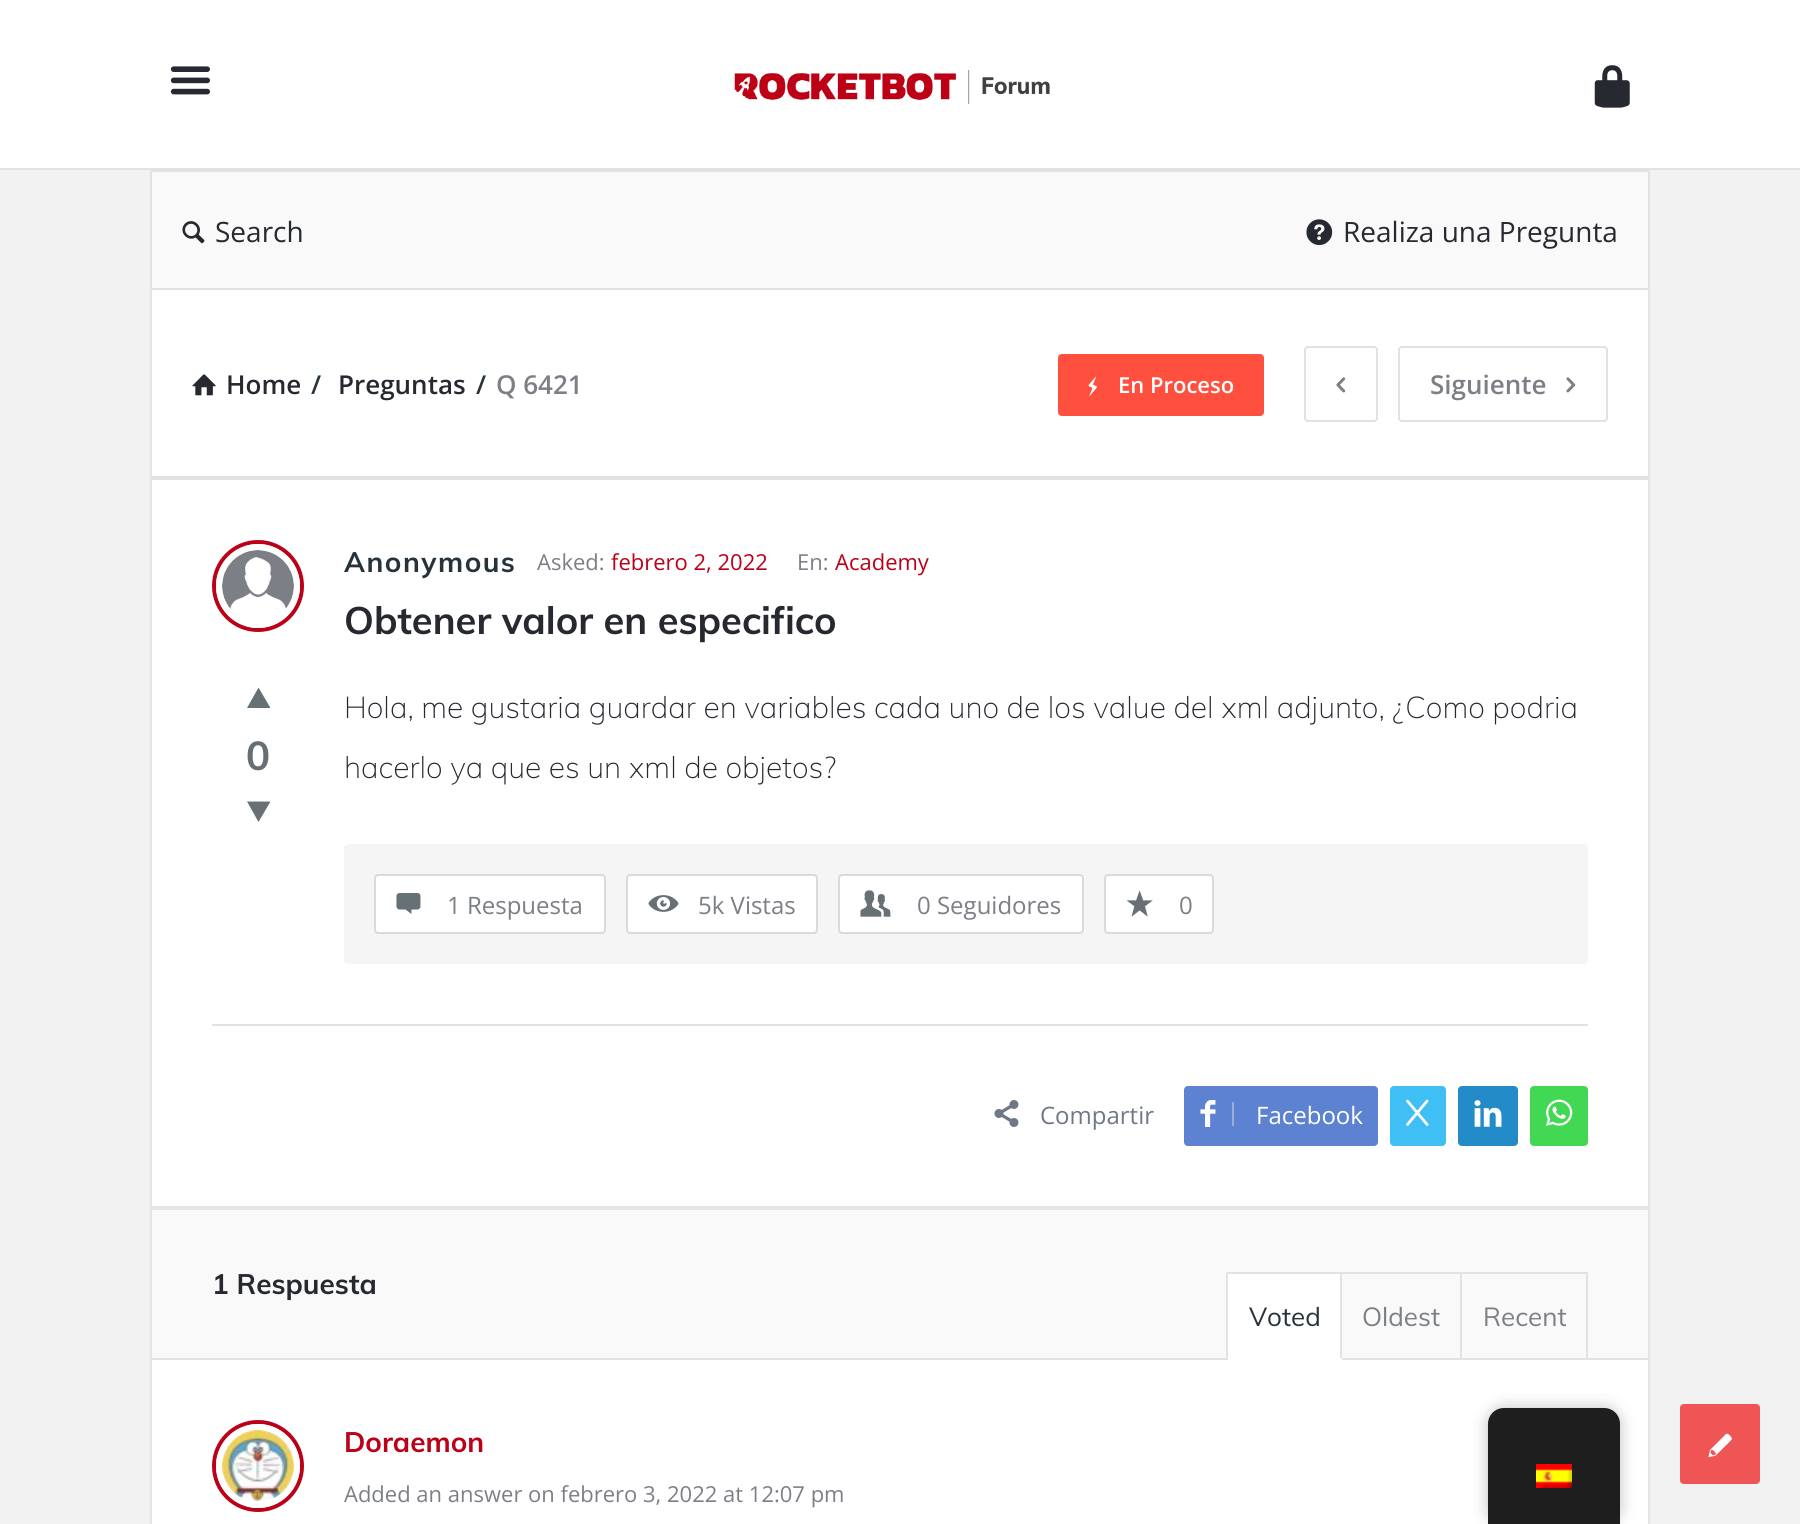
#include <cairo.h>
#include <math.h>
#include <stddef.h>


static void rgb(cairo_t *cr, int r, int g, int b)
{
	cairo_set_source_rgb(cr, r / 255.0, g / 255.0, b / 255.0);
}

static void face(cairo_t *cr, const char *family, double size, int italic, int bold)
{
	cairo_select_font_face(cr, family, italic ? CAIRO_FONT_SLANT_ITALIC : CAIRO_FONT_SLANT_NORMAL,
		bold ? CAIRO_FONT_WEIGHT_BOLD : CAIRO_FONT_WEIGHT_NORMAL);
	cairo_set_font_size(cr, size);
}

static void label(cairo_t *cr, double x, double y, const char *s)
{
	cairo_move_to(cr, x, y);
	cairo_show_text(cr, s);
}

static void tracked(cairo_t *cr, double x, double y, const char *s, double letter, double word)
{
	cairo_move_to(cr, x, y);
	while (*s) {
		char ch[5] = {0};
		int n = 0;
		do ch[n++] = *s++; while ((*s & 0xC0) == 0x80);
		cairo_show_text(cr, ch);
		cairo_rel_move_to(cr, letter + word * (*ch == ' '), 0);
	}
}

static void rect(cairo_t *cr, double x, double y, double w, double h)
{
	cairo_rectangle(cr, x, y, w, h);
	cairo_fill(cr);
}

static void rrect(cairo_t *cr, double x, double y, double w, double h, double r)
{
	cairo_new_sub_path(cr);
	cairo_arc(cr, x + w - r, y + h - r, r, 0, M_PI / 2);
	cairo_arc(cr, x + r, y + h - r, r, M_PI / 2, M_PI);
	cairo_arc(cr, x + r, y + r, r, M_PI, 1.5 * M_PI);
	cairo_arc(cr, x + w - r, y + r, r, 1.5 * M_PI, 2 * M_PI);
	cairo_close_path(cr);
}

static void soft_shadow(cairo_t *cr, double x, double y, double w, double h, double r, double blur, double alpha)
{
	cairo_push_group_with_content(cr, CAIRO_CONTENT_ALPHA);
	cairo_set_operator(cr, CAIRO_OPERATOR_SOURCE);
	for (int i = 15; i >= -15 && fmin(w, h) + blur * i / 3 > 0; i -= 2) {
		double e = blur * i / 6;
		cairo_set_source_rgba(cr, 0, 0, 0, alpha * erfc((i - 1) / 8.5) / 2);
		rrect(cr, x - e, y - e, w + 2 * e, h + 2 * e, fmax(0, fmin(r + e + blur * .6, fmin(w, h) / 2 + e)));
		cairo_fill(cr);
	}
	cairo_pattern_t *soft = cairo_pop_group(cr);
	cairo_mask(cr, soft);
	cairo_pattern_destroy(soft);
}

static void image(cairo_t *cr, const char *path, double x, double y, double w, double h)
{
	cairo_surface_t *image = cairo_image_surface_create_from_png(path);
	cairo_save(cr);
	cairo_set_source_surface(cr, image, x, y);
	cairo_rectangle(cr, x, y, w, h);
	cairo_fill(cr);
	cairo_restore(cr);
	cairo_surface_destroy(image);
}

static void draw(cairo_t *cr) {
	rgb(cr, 242, 242, 242);
	cairo_paint(cr);
	rgb(cr, 255, 255, 255);
	rect(cr, 0, 0, 1800, 168);
	rgb(cr, 225, 227, 227);
	rect(cr, 0, 168, 1800, 2);
	image(cr, "image0.png", 170, 66, 40, 29);
	image(cr, "image1.png", 734, 70, 316, 34);
	image(cr, "image2.png", 1594, 65, 36, 43);
	rgb(cr, 249, 249, 249);
	cairo_rectangle(cr, 151, 171, 1498, 118);
	cairo_fill_preserve(cr);
	rgb(cr, 225, 227, 227);
	cairo_stroke(cr);
	image(cr, "image3.png", 182, 221, 23, 23);
	face(cr, "Open Sans", 28, 0, 0);
	rgb(cr, 39, 41, 48);
	label(cr, 215, 242, "Search");
	image(cr, "image4.png", 1306, 219, 27, 27);
	label(cr, 1343, 242, "Realiza una Pregunta");
	rgb(cr, 255, 255, 255);
	rect(cr, 152, 290, 1496, 1234);
	rgb(cr, 228, 229, 230);
	rect(cr, 1648, 290, 2, 1234);
	rect(cr, 150, 290, 2, 1234);
	rgb(cr, 225, 227, 227);
	rect(cr, 152, 476, 1496, 4);
	image(cr, "image5.png", 192, 374, 24, 22);
	face(cr, "Open Sans SemiBold", 26, 0, 0);
	rgb(cr, 39, 41, 48);
	label(cr, 226, 394, "Home");
	rgb(cr, 38, 51, 59);
	label(cr, 311, 394, "/");
	rgb(cr, 39, 41, 48);
	label(cr, 338, 394, "Preguntas");
	rgb(cr, 38, 51, 59);
	label(cr, 476, 394, "/");
	rgb(cr, 124, 127, 133);
	label(cr, 496, 394, "Q 6421");
	rgb(cr, 255, 80, 63);
	rrect(cr, 1058, 354, 206, 62, 4);
	cairo_fill(cr);
	image(cr, "image6.png", 1088, 376, 10, 20);
	face(cr, "Open Sans SemiBold", 22, 0, 0);
	rgb(cr, 255, 255, 255);
	label(cr, 1118, 393, "En Proceso");
	rrect(cr, 1305, 347, 72, 74, 3);
	rgb(cr, 225, 227, 227);
	cairo_stroke(cr);
	image(cr, "image7.png", 1336, 377, 10, 16);
	rrect(cr, 1399, 347, 208, 74, 3);
	cairo_stroke(cr);
	face(cr, "Open Sans SemiBold", 26, 0, 0);
	rgb(cr, 124, 127, 133);
	label(cr, 1430, 394, "Siguiente");
	image(cr, "image8.png", 1566, 377, 10, 16);
	cairo_arc(cr, 258, 586, 44, 0, 2 * M_PI);
	rgb(cr, 188, 0, 24);
	cairo_set_line_width(cr, 4);
	cairo_stroke(cr);
	cairo_arc(cr, 258, 586, 39, 0, 2 * M_PI);
	rgb(cr, 255, 255, 255);
	cairo_set_line_width(cr, 6);
	cairo_stroke(cr);
	image(cr, "image9.png", 222, 550, 72, 59);
	face(cr, "Muli", 28, 0, 1);
	rgb(cr, 38, 51, 59);
	tracked(cr, 344, 572, "Anonymous", 1.5, 0);
	face(cr, "Open Sans", 22, 0, 0);
	rgb(cr, 124, 127, 133);
	label(cr, 537, 570, "Asked:");
	rgb(cr, 188, 0, 24);
	label(cr, 611, 570, "febrero 2, 2022");
	rgb(cr, 124, 127, 133);
	label(cr, 797, 570, "En:");
	rgb(cr, 188, 0, 24);
	label(cr, 835, 570, "Academy");
	face(cr, "Muli", 38, 0, 1);
	rgb(cr, 39, 41, 48);
	label(cr, 344, 634, "Obtener valor en especifico");
	rgb(cr, 103, 112, 117);
	cairo_new_path(cr);
	cairo_move_to(cr, 247, 708);
	cairo_line_to(cr, 258.5, 687.5);
	cairo_line_to(cr, 270.5, 708);
	cairo_close_path(cr);
	cairo_fill(cr);
	face(cr, "Muli", 40, 0, 1);
	label(cr, 246, 770, "0");
	cairo_new_path(cr);
	cairo_move_to(cr, 270.5, 801.5);
	cairo_line_to(cr, 258.5, 822);
	cairo_line_to(cr, 247, 801.5);
	cairo_close_path(cr);
	cairo_fill(cr);
	face(cr, "Muli ExtraLight", 30, 0, 0);
	rgb(cr, 39, 41, 48);
	label(cr, 344, 718, "Hola, me gustaria guardar en variables cada uno de los value del xml adjunto, ¿Como podria");
	label(cr, 344, 778, "hacerlo ya que es un xml de objetos?");
	rgb(cr, 245, 245, 245);
	rrect(cr, 344, 844, 1244, 120, 4);
	cairo_fill(cr);
	rgb(cr, 255, 255, 255);
	rrect(cr, 375, 875, 230, 58, 3);
	cairo_fill_preserve(cr);
	rgb(cr, 217, 218, 219);
	cairo_set_line_width(cr, 2);
	cairo_stroke(cr);
	image(cr, "image10.png", 396, 893, 25, 21);
	face(cr, "Open Sans", 24, 0, 0);
	rgb(cr, 124, 127, 133);
	label(cr, 447, 914, "1 Respuesta");
	rgb(cr, 255, 255, 255);
	rrect(cr, 627, 875, 190, 58, 3);
	cairo_fill_preserve(cr);
	rgb(cr, 217, 218, 219);
	cairo_stroke(cr);
	image(cr, "image11.png", 648, 895, 31, 17);
	rgb(cr, 124, 127, 133);
	label(cr, 698, 914, "5k Vistas");
	rgb(cr, 255, 255, 255);
	rrect(cr, 839, 875, 244, 58, 3);
	cairo_fill_preserve(cr);
	rgb(cr, 217, 218, 219);
	cairo_stroke(cr);
	image(cr, "image12.png", 860, 890, 31, 27);
	rgb(cr, 124, 127, 133);
	label(cr, 917, 914, "0 Seguidores");
	rgb(cr, 255, 255, 255);
	rrect(cr, 1105, 875, 108, 58, 3);
	cairo_fill_preserve(cr);
	rgb(cr, 217, 218, 219);
	cairo_stroke(cr);
	image(cr, "image13.png", 1126, 890, 27, 27);
	rgb(cr, 124, 127, 133);
	label(cr, 1179, 914, "0");
	rgb(cr, 225, 227, 227);
	rect(cr, 212, 1024, 1376, 2);
	image(cr, "image14.png", 994, 1100, 25, 27);
	rgb(cr, 112, 120, 133);
	label(cr, 1040, 1124, "Compartir");
	rgb(cr, 93, 130, 209);
	rrect(cr, 1184, 1086, 194, 60, 4);
	cairo_fill(cr);
	rgb(cr, 154, 173, 212);
	rect(cr, 1232, 1102, 2, 24);
	image(cr, "image15.png", 1200, 1100, 16, 27);
	rgb(cr, 255, 255, 255);
	label(cr, 1256, 1124, "Facebook");
	rgb(cr, 64, 191, 245);
	rrect(cr, 1390, 1086, 56, 60, 4);
	cairo_fill(cr);
	image(cr, "image16.png", 1406, 1099, 23, 27);
	rgb(cr, 35, 140, 200);
	rrect(cr, 1458, 1086, 60, 60, 4);
	cairo_fill(cr);
	image(cr, "image17.png", 1474, 1100, 28, 27);
	rgb(cr, 67, 216, 84);
	rrect(cr, 1530, 1086, 58, 60, 4);
	cairo_fill(cr);
	image(cr, "image18.png", 1546, 1099, 27, 27);
	rgb(cr, 228, 230, 230);
	rect(cr, 152, 1206, 1496, 4);
	rgb(cr, 249, 249, 249);
	rect(cr, 152, 1210, 1496, 148);
	rgb(cr, 225, 227, 227);
	rect(cr, 152, 1358, 1496, 2);
	face(cr, "Muli", 28, 0, 1);
	rgb(cr, 39, 41, 48);
	label(cr, 212, 1294, "1 Respuesta");
	rgb(cr, 255, 255, 255);
	cairo_rectangle(cr, 1227, 1273, 114, 86);
	cairo_fill_preserve(cr);
	rgb(cr, 225, 227, 227);
	cairo_stroke(cr);
	face(cr, "Muli", 26, 0, 0);
	rgb(cr, 38, 51, 59);
	label(cr, 1249, 1326, "Voted");
	rgb(cr, 255, 255, 255);
	rect(cr, 1228, 1358, 114, 2);
	rgb(cr, 225, 227, 227);
	rect(cr, 1342, 1272, 246, 2);
	rect(cr, 1460, 1272, 2, 88);
	rgb(cr, 124, 127, 133);
	label(cr, 1362, 1326, "Oldest");
	rgb(cr, 225, 227, 227);
	rect(cr, 1586, 1272, 2, 88);
	rgb(cr, 124, 127, 133);
	label(cr, 1483, 1326, "Recent");
	cairo_new_path(cr);
	cairo_arc(cr, 258, 1466, 44, 0, 2 * M_PI);
	rgb(cr, 188, 0, 24);
	cairo_set_line_width(cr, 4);
	cairo_stroke(cr);
	cairo_arc(cr, 258, 1466, 39, 0, 2 * M_PI);
	rgb(cr, 255, 255, 255);
	cairo_set_line_width(cr, 6);
	cairo_stroke(cr);
	image(cr, "image19.png", 222, 1430, 72, 72);
	face(cr, "Muli", 28, 0, 1);
	rgb(cr, 188, 0, 24);
	label(cr, 344, 1452, "Doraemon");
	face(cr, "Open Sans", 22, 0, 0);
	rgb(cr, 124, 127, 133);
	label(cr, 344, 1502, "Added an answer on febrero 3, 2022 at 12:07 pm");
	rgb(cr, 0, 0, 0);
	soft_shadow(cr, 1488, 1408, 132, 116, 16, 8, 0.25);
	rgb(cr, 30, 30, 30);
	cairo_new_path(cr);
	cairo_move_to(cr, 1504, 1408);
	cairo_line_to(cr, 1604, 1408);
	cairo_curve_to(cr, 1613, 1408, 1620, 1415, 1620, 1424);
	cairo_line_to(cr, 1620, 1524);
	cairo_line_to(cr, 1488, 1524);
	cairo_line_to(cr, 1488, 1424);
	cairo_curve_to(cr, 1488, 1415, 1495, 1408, 1504, 1408);
	cairo_close_path(cr);
	cairo_fill(cr);
	image(cr, "image20.png", 1536, 1464, 36, 24);
	rgb(cr, 240, 85, 85);
	rrect(cr, 1680, 1404, 80, 80, 4);
	cairo_fill(cr);
	image(cr, "image21.png", 1708, 1433, 24, 25);
}

int main(void) {
	cairo_surface_t *surface = cairo_image_surface_create(CAIRO_FORMAT_RGB24, 1800, 1524);
	cairo_t *cr = cairo_create(surface);
	cairo_font_options_t *options = cairo_font_options_create();
	cairo_font_options_set_hint_metrics(options, CAIRO_HINT_METRICS_OFF);
	cairo_font_options_set_hint_style(options, CAIRO_HINT_STYLE_NONE);
	cairo_set_font_options(cr, options);
	cairo_set_miter_limit(cr, 4);
	draw(cr);
	cairo_surface_write_to_png(surface, "render.png");
	cairo_font_options_destroy(options);
	cairo_destroy(cr);
	cairo_surface_destroy(surface);
	return 0;
}
